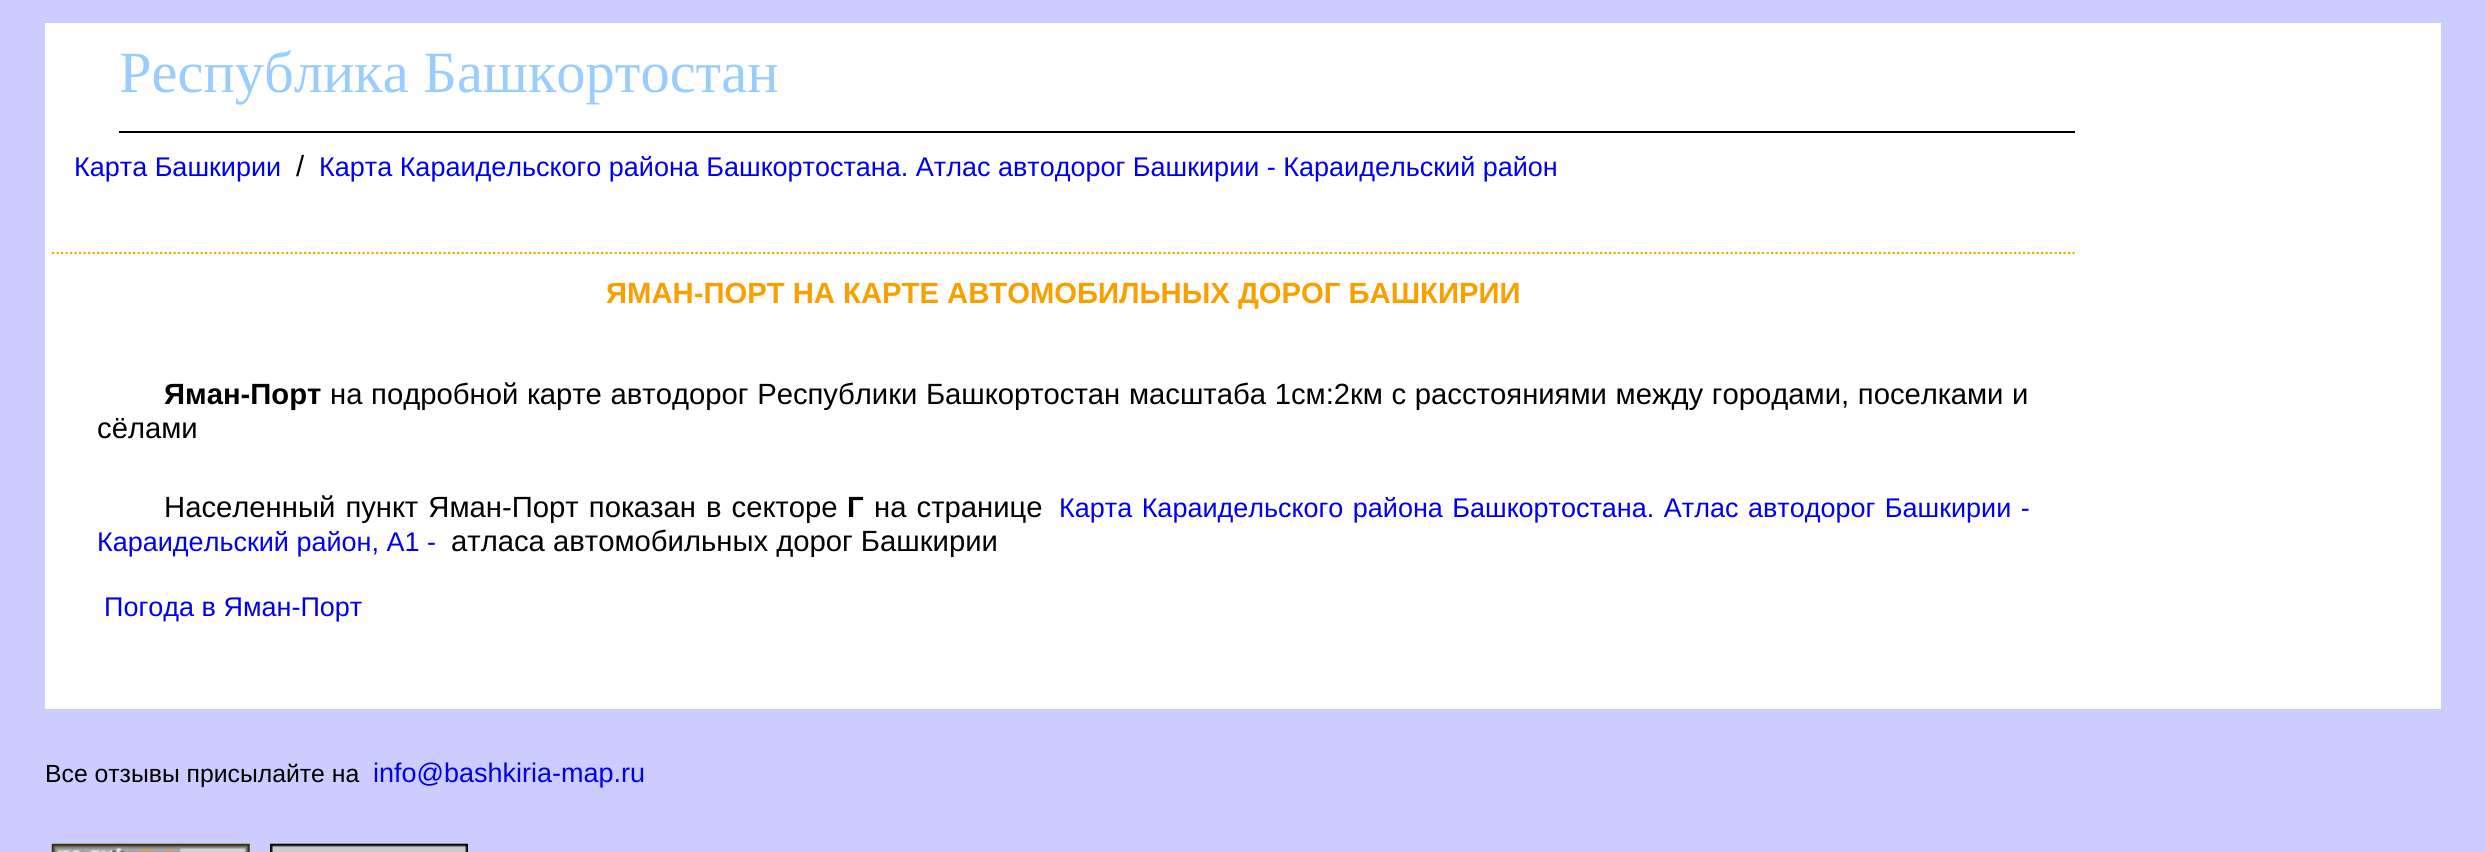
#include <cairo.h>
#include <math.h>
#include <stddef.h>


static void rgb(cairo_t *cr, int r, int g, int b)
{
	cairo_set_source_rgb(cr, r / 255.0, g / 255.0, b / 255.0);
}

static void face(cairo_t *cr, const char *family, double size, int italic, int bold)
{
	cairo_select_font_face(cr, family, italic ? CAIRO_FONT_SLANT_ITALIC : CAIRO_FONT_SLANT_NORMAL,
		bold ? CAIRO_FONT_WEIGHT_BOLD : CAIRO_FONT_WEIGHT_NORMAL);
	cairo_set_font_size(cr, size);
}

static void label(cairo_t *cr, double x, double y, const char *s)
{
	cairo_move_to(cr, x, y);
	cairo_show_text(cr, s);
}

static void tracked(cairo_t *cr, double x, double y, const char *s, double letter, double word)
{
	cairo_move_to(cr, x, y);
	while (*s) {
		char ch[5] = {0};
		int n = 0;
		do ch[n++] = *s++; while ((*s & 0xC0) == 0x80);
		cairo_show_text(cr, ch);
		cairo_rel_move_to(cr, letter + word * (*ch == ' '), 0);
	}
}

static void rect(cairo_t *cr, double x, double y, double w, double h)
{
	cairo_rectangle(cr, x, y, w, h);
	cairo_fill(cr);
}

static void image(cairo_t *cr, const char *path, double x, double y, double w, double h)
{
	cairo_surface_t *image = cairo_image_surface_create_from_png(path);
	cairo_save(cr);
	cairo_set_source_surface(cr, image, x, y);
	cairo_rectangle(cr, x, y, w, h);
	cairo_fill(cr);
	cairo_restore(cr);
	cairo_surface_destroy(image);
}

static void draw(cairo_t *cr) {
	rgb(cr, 204, 204, 255);
	cairo_paint(cr);
	rgb(cr, 255, 255, 255);
	rect(cr, 45, 23, 2396, 686);
	rgb(cr, 0, 0, 0);
	rect(cr, 119, 131, 1956, 2);
	face(cr, "Liberation Serif", 58.5, 0, 0);
	rgb(cr, 153, 204, 255);
	label(cr, 119, 92, "Республика Башкортостан");
	face(cr, "Liberation Sans", 27, 0, 0);
	rgb(cr, 0, 0, 238);
	label(cr, 74, 176, "Карта Башкирии");
	face(cr, "Liberation Sans", 29.25, 0, 0);
	rgb(cr, 0, 0, 0);
	label(cr, 296, 176, "/");
	face(cr, "Liberation Sans", 27, 0, 0);
	rgb(cr, 0, 0, 238);
	label(cr, 319, 176, "Карта Караидельского района Башкортостана. Атлас автодорог Башкирии - Караидельский район");
	cairo_new_path(cr);
	cairo_move_to(cr, 52, 253);
	cairo_line_to(cr, 2074.5, 253);
	rgb(cr, 255, 165, 0);
	cairo_set_line_width(cr, 2.2);
	cairo_set_dash(cr, (double[]){2.25, 2.25}, 2, 0);
	cairo_stroke(cr);
	face(cr, "Liberation Sans", 29.25, 0, 1);
	rgb(cr, 249, 160, 0);
	label(cr, 606, 303, "ЯМАН-ПОРТ НА КАРТЕ АВТОМОБИЛЬНЫХ ДОРОГ БАШКИРИИ");
	rgb(cr, 0, 0, 0);
	label(cr, 164, 404, "Яман-Порт");
	face(cr, "Liberation Sans", 29.25, 0, 0);
	tracked(cr, 330, 404, "на подробной карте автодорог Республики Башкортостан масштаба 1см:2км с расстояниями между городами, поселками и", 0, 0.5);
	label(cr, 97, 438, "сёлами");
	tracked(cr, 164, 517, "Населенный пункт Яман-Порт показан в секторе", 0, 2);
	face(cr, "Liberation Sans", 29.25, 0, 1);
	label(cr, 847, 517, "Г");
	face(cr, "Liberation Sans", 29.25, 0, 0);
	tracked(cr, 874, 517, "на странице", 0, 2);
	face(cr, "Liberation Sans", 27, 0, 0);
	rgb(cr, 0, 0, 238);
	tracked(cr, 1059, 517, "Карта Караидельского района Башкортостана. Атлас автодорог Башкирии -", 0, 2);
	label(cr, 97, 551, "Караидельский район, A1 -");
	face(cr, "Liberation Sans", 29.25, 0, 0);
	rgb(cr, 0, 0, 0);
	label(cr, 451, 551, "атласа автомобильных дорог Башкирии");
	face(cr, "Liberation Sans", 27, 0, 0);
	rgb(cr, 0, 0, 238);
	label(cr, 104, 616, "Погода в Яман-Порт");
	face(cr, "Liberation Sans", 24.75, 0, 0);
	rgb(cr, 0, 0, 0);
	label(cr, 45, 782, "Все отзывы присылайте на");
	face(cr, "Liberation Sans", 27, 0, 0);
	rgb(cr, 0, 0, 238);
	label(cr, 373, 782, "info@bashkiria-map.ru");
	image(cr, "image0.png", 51, 843, 199, 9);
	image(cr, "image1.png", 270, 843, 198, 9);
}

int main(void) {
	cairo_surface_t *surface = cairo_image_surface_create(CAIRO_FORMAT_RGB24, 2485, 852);
	cairo_t *cr = cairo_create(surface);
	cairo_font_options_t *options = cairo_font_options_create();
	cairo_font_options_set_hint_metrics(options, CAIRO_HINT_METRICS_OFF);
	cairo_font_options_set_hint_style(options, CAIRO_HINT_STYLE_NONE);
	cairo_set_font_options(cr, options);
	cairo_set_miter_limit(cr, 4);
	draw(cr);
	cairo_surface_write_to_png(surface, "render.png");
	cairo_font_options_destroy(options);
	cairo_destroy(cr);
	cairo_surface_destroy(surface);
	return 0;
}
